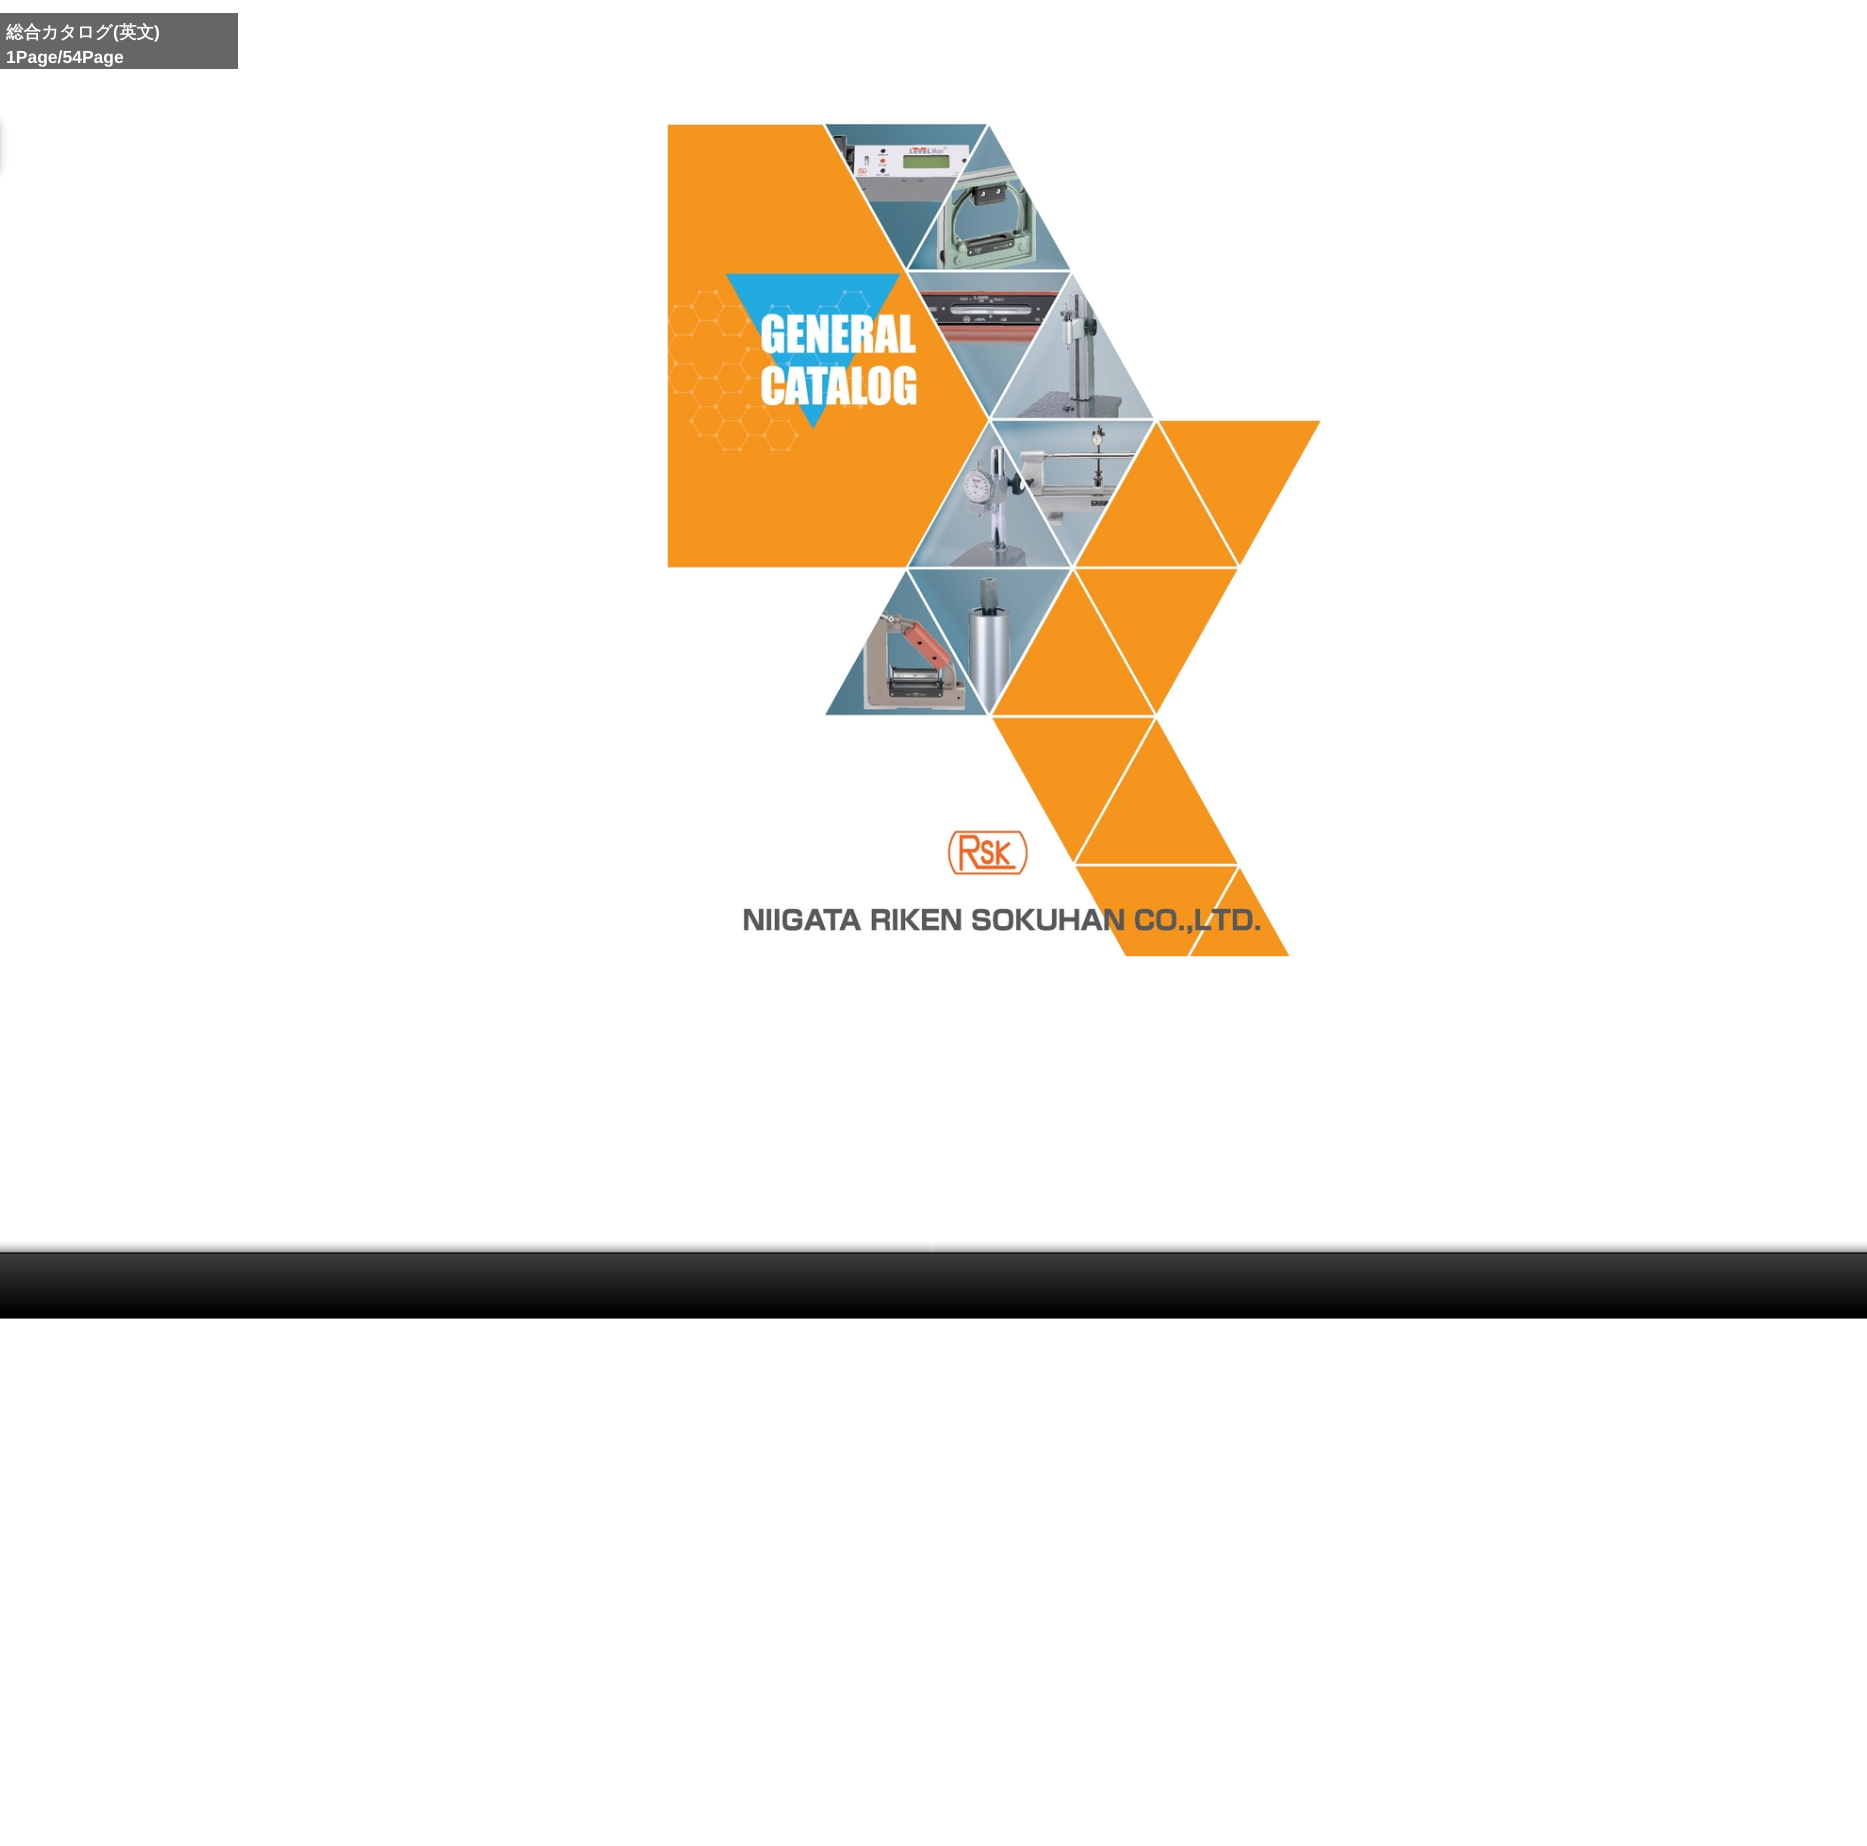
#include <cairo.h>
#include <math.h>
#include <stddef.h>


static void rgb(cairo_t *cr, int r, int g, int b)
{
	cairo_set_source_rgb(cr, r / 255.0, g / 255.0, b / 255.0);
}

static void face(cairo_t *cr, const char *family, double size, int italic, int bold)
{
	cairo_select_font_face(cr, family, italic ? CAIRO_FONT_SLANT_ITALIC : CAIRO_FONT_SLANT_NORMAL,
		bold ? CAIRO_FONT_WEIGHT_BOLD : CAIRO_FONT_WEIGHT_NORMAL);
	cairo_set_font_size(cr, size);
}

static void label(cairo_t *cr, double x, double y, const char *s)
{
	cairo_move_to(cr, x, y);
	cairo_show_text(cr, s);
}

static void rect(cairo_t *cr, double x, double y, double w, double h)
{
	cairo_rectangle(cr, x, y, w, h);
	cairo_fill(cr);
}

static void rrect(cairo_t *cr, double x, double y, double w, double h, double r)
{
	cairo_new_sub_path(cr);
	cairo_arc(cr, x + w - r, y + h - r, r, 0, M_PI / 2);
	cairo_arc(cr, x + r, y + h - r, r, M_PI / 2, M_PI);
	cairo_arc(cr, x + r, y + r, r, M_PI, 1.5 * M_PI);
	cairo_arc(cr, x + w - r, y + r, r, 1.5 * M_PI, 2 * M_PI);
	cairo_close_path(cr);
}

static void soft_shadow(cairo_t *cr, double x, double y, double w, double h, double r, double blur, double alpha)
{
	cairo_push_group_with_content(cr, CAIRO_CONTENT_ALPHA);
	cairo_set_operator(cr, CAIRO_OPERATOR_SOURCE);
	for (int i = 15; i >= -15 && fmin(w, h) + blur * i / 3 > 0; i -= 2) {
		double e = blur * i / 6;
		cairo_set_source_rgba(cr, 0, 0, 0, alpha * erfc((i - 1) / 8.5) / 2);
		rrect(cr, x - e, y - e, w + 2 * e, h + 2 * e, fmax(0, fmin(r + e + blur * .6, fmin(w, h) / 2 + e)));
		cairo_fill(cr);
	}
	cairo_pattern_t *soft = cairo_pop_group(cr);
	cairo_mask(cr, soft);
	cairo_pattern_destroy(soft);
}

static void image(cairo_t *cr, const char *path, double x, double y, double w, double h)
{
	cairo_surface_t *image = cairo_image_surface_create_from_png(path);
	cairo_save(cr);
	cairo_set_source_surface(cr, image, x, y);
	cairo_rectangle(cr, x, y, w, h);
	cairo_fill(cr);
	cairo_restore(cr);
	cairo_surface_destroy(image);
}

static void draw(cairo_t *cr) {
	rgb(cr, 255, 255, 255);
	cairo_paint(cr);
	rgb(cr, 102, 102, 102);
	rect(cr, 0, 13, 238, 56);
	face(cr, "WenQuanYi Zen Hei", 17.5, 0, 1);
	rgb(cr, 255, 255, 255);
	label(cr, 6, 38, "総合カタログ");
	face(cr, "Liberation Sans", 17.5, 0, 1);
	label(cr, 113, 38, "(");
	face(cr, "WenQuanYi Zen Hei", 17.5, 0, 1);
	label(cr, 119, 38, "英文");
	face(cr, "Liberation Sans", 17.5, 0, 1);
	label(cr, 154, 38, ")");
	label(cr, 6, 63, "1Page/54Page");
	image(cr, "image0.png", 667, 36, 655, 921);
	image(cr, "image1.png", 0, 1242, 1867, 77);
	rgb(cr, 51, 51, 51);
	soft_shadow(cr, -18, 125, 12, 43, 0, 6, 1);
}

int main(void) {
	cairo_surface_t *surface = cairo_image_surface_create(CAIRO_FORMAT_RGB24, 1867, 1846);
	cairo_t *cr = cairo_create(surface);
	cairo_font_options_t *options = cairo_font_options_create();
	cairo_font_options_set_hint_metrics(options, CAIRO_HINT_METRICS_OFF);
	cairo_font_options_set_hint_style(options, CAIRO_HINT_STYLE_NONE);
	cairo_set_font_options(cr, options);
	cairo_set_miter_limit(cr, 4);
	draw(cr);
	cairo_surface_write_to_png(surface, "render.png");
	cairo_font_options_destroy(options);
	cairo_destroy(cr);
	cairo_surface_destroy(surface);
	return 0;
}
